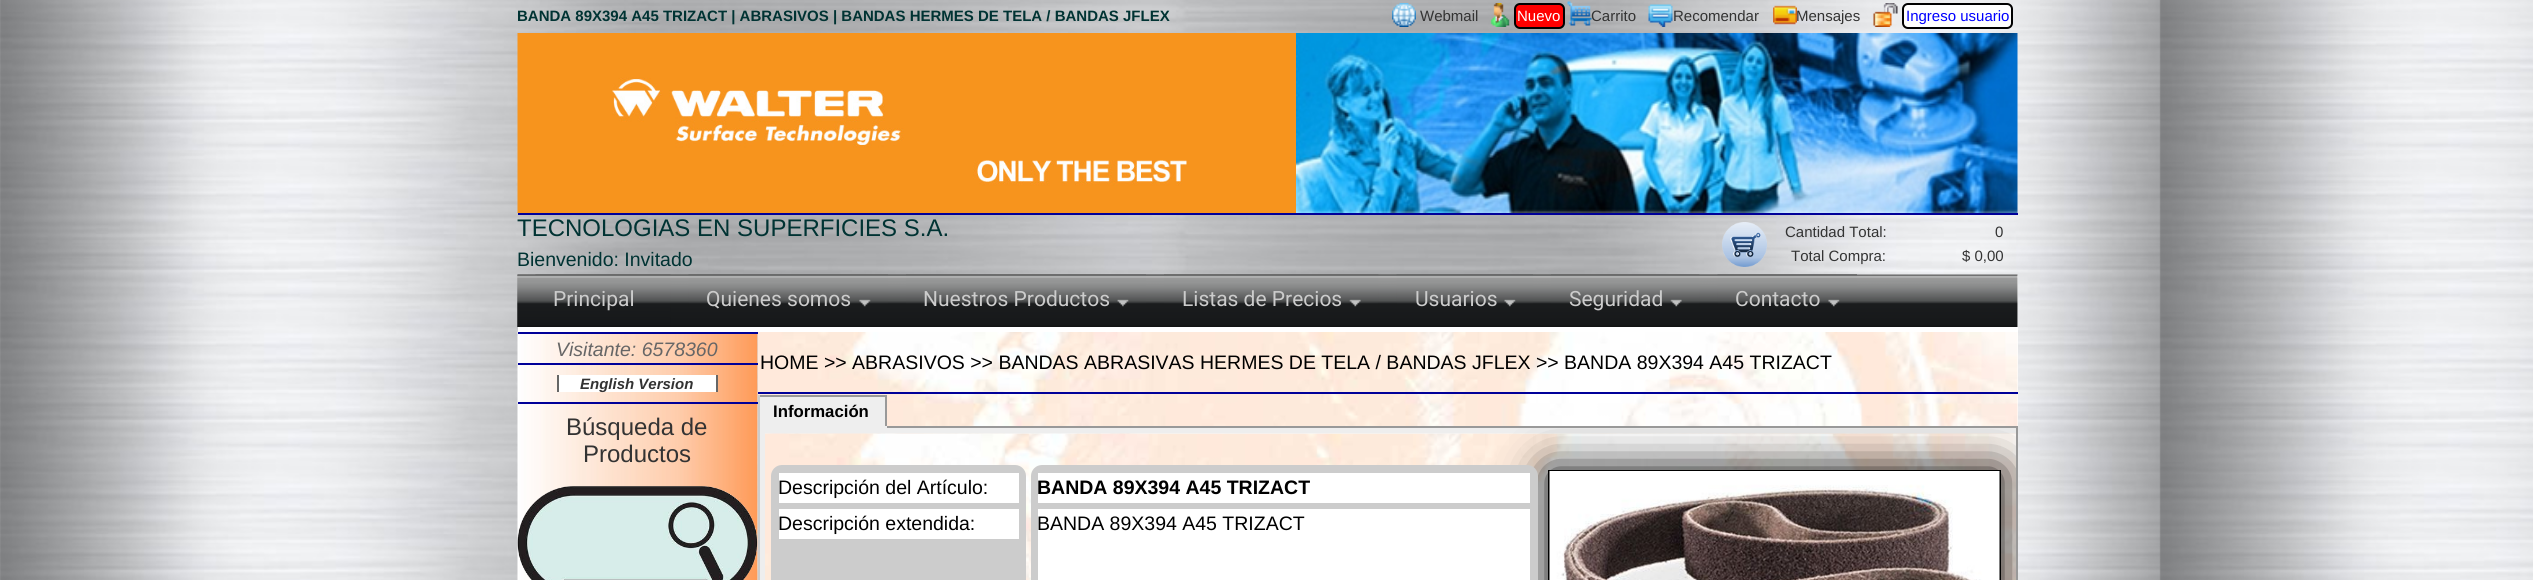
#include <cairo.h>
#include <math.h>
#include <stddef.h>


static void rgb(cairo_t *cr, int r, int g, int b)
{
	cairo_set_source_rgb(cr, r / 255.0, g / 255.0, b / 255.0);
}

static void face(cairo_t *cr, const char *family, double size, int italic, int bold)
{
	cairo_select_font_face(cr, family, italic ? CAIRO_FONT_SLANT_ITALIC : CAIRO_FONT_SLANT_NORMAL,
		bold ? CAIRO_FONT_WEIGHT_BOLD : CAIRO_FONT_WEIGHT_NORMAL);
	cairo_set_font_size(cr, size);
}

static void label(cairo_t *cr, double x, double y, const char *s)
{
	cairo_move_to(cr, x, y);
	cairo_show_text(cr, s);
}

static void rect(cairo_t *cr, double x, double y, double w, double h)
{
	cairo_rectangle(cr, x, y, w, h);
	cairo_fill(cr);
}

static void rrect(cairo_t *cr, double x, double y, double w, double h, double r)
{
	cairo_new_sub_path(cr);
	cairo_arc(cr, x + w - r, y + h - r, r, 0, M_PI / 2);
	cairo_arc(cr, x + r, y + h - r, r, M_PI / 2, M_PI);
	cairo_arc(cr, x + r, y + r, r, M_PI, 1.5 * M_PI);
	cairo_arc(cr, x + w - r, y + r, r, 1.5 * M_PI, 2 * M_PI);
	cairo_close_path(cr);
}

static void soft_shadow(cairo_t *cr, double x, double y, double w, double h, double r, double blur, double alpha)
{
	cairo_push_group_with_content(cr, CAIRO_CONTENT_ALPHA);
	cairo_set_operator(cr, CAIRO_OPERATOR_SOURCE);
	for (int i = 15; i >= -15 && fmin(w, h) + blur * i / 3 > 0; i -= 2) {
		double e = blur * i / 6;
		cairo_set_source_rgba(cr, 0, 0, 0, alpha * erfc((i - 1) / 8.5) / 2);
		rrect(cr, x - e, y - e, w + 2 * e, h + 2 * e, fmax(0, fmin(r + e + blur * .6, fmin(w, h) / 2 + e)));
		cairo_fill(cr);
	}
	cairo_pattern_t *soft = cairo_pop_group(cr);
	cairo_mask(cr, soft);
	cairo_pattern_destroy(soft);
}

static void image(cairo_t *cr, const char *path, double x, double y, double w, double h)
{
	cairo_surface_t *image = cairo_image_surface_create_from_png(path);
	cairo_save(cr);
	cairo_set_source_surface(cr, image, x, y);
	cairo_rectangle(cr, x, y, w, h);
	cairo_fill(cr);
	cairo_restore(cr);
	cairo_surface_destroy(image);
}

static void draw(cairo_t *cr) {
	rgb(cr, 255, 255, 255);
	cairo_paint(cr);
	image(cr, "image0.png", 0, 0, 2533, 580);
	face(cr, "Liberation Sans", 15, 0, 1);
	rgb(cr, 0, 51, 51);
	label(cr, 517, 21, "BANDA 89X394 A45 TRIZACT | ABRASIVOS | BANDAS HERMES DE TELA / BANDAS JFLEX");
	image(cr, "image1.png", 1392, 3, 24, 24);
	face(cr, "Liberation Sans", 15, 0, 0);
	rgb(cr, 51, 51, 51);
	label(cr, 1420, 21, "Webmail");
	image(cr, "image2.png", 1490, 3, 20, 24);
	rgb(cr, 255, 0, 0);
	rrect(cr, 1515, 4, 49, 24, 5);
	cairo_fill_preserve(cr);
	rgb(cr, 0, 0, 0);
	cairo_stroke(cr);
	rgb(cr, 255, 255, 255);
	label(cr, 1517, 21, "Nuevo");
	image(cr, "image3.png", 1567, 1, 25, 25);
	rgb(cr, 51, 51, 51);
	label(cr, 1591, 21, "Carrito");
	image(cr, "image4.png", 1648, 4, 25, 23);
	label(cr, 1673, 21, "Recomendar");
	image(cr, "image5.png", 1773, 5, 24, 20);
	label(cr, 1796, 21, "Mensajes");
	image(cr, "image6.png", 1873, 3, 25, 24);
	rgb(cr, 255, 255, 255);
	rrect(cr, 1903, 4, 109, 24, 5);
	cairo_fill_preserve(cr);
	rgb(cr, 0, 0, 0);
	cairo_stroke(cr);
	rgb(cr, 0, 0, 255);
	label(cr, 1906, 21, "Ingreso usuario");
	image(cr, "image7.png", 517, 33, 779, 180);
	image(cr, "image8.png", 1296, 33, 722, 180);
	rgb(cr, 0, 0, 153);
	rect(cr, 518, 213, 1500, 2);
	face(cr, "Liberation Sans", 24, 0, 0);
	rgb(cr, 0, 51, 51);
	label(cr, 517, 236, "TECNOLOGIAS EN SUPERFICIES S.A.");
	image(cr, "image9.png", 1722, 222, 45, 45);
	face(cr, "Liberation Sans", 15, 0, 0);
	rgb(cr, 51, 51, 51);
	label(cr, 1785, 237, "Cantidad Total:");
	label(cr, 1995, 237, "0");
	face(cr, "Liberation Sans", 19.5, 0, 0);
	rgb(cr, 0, 51, 51);
	label(cr, 517, 266, "Bienvenido: Invitado");
	face(cr, "Liberation Sans", 15, 0, 0);
	rgb(cr, 51, 51, 51);
	label(cr, 1791, 261, "Total Compra:");
	label(cr, 1962, 261, "$ 0,00");
	image(cr, "image25.png", 517, 331, 241, 249);
	rgb(cr, 255, 255, 255);
	rect(cr, 518, 275, 1500, 57);
	image(cr, "image10.png", 517, 274, 1501, 53);
	image(cr, "image11.png", 517, 274, 154, 53);
	image(cr, "image12.png", 535, 274, 136, 1);
	face(cr, "Roboto", 21, 0, 0);
	rgb(cr, 204, 204, 204);
	label(cr, 553, 306, "Principal");
	image(cr, "image13.png", 670, 274, 218, 2);
	image(cr, "image14.png", 688, 274, 200, 33);
	label(cr, 706, 306, "Quienes somos");
	image(cr, "image15.png", 888, 274, 258, 2);
	image(cr, "image16.png", 906, 274, 240, 33);
	label(cr, 923, 306, "Nuestros Productos");
	image(cr, "image17.png", 1146, 274, 233, 2);
	image(cr, "image18.png", 1164, 274, 215, 33);
	label(cr, 1182, 306, "Listas de Precios");
	image(cr, "image19.png", 1378, 274, 155, 2);
	image(cr, "image20.png", 1396, 274, 137, 33);
	label(cr, 1415, 306, "Usuarios");
	image(cr, "image21.png", 1533, 274, 167, 2);
	image(cr, "image22.png", 1551, 274, 149, 33);
	label(cr, 1569, 306, "Seguridad");
	image(cr, "image23.png", 1699, 274, 158, 2);
	image(cr, "image24.png", 1717, 274, 140, 33);
	label(cr, 1735, 306, "Contacto");
	rgb(cr, 255, 255, 255);
	rect(cr, 2017, 332, 1, 94);
	image(cr, "image27.png", 757, 332, 1261, 248);
	rgb(cr, 0, 0, 153);
	rect(cr, 518, 332, 240, 2);
	face(cr, "Liberation Sans", 19.5, 1, 0);
	rgb(cr, 102, 102, 102);
	label(cr, 556, 356, "Visitante: 6578360");
	rgb(cr, 0, 0, 153);
	rect(cr, 518, 363, 240, 2);
	rgb(cr, 255, 255, 255);
	rect(cr, 559, 375, 157, 17);
	face(cr, "Liberation Sans", 15, 1, 1);
	rgb(cr, 51, 51, 51);
	label(cr, 580, 389, "English Version");
	rgb(cr, 102, 102, 102);
	rect(cr, 716, 375, 2, 17);
	rect(cr, 557, 375, 2, 17);
	rgb(cr, 0, 0, 153);
	rect(cr, 518, 402, 240, 2);
	face(cr, "Liberation Sans", 24, 0, 0);
	rgb(cr, 51, 51, 51);
	label(cr, 566, 435, "Búsqueda de");
	label(cr, 583, 462, "Productos");
	image(cr, "image26.png", 517, 486, 241, 94);
	face(cr, "Liberation Sans", 19.5, 0, 0);
	rgb(cr, 0, 0, 0);
	label(cr, 760, 369, "HOME >> ABRASIVOS >> BANDAS ABRASIVAS HERMES DE TELA / BANDAS JFLEX >> BANDA 89X394 A45 TRIZACT");
	rgb(cr, 0, 0, 153);
	rect(cr, 758, 392, 1260, 2);
	rgb(cr, 238, 238, 238);
	rect(cr, 760, 397, 125, 29);
	rgb(cr, 153, 153, 153);
	rect(cr, 758, 395, 129, 2);
	rect(cr, 885, 395, 2, 33);
	rgb(cr, 204, 204, 204);
	rect(cr, 758, 426, 2, 154);
	rgb(cr, 238, 238, 238);
	rect(cr, 758, 426, 129, 2);
	rgb(cr, 204, 204, 204);
	rect(cr, 758, 395, 2, 33);
	face(cr, "Liberation Sans", 16.75, 0, 1);
	rgb(cr, 0, 0, 0);
	label(cr, 773, 417, "Información");
	rgb(cr, 238, 238, 238);
	rect(cr, 760, 428, 1256, 152);
	rgb(cr, 153, 153, 153);
	rect(cr, 887, 426, 1131, 2);
	rect(cr, 2016, 426, 2, 154);
	image(cr, "image28.png", 765, 433, 1251, 147);
	rgb(cr, 204, 204, 204);
	rrect(cr, 771, 465, 255, 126, 11);
	cairo_fill(cr);
	rgb(cr, 255, 255, 255);
	rect(cr, 779, 473, 240, 30);
	face(cr, "Liberation Sans", 19.5, 0, 0);
	rgb(cr, 0, 0, 0);
	label(cr, 778, 494, "Descripción del Artículo:");
	rgb(cr, 255, 255, 255);
	rect(cr, 779, 509, 240, 30);
	rgb(cr, 0, 0, 0);
	label(cr, 778, 530, "Descripción extendida:");
	cairo_save(cr);
	cairo_rectangle(cr, 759, 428, 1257, 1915);
	cairo_clip(cr);
	rgb(cr, 0, 0, 0);
	soft_shadow(cr, 1548, 470, 453, 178, 0, 22.5, 1);
	cairo_restore(cr);
	rgb(cr, 204, 204, 204);
	rrect(cr, 1031, 465, 507, 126, 11);
	cairo_fill(cr);
	rgb(cr, 255, 255, 255);
	rect(cr, 1038, 473, 492, 30);
	face(cr, "Liberation Sans", 19.5, 0, 1);
	rgb(cr, 0, 0, 0);
	label(cr, 1037, 494, "BANDA 89X394 A45 TRIZACT");
	rgb(cr, 255, 255, 255);
	rect(cr, 1038, 509, 492, 71);
	face(cr, "Liberation Sans", 19.5, 0, 0);
	rgb(cr, 0, 0, 0);
	label(cr, 1037, 530, "BANDA 89X394 A45 TRIZACT");
	cairo_rectangle(cr, 1549, 471, 451, 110);
	cairo_stroke(cr);
	image(cr, "image29.png", 1549, 471, 451, 109);
}

int main(void) {
	cairo_surface_t *surface = cairo_image_surface_create(CAIRO_FORMAT_RGB24, 2533, 580);
	cairo_t *cr = cairo_create(surface);
	cairo_font_options_t *options = cairo_font_options_create();
	cairo_font_options_set_hint_metrics(options, CAIRO_HINT_METRICS_OFF);
	cairo_font_options_set_hint_style(options, CAIRO_HINT_STYLE_NONE);
	cairo_set_font_options(cr, options);
	cairo_set_miter_limit(cr, 4);
	draw(cr);
	cairo_surface_write_to_png(surface, "render.png");
	cairo_font_options_destroy(options);
	cairo_destroy(cr);
	cairo_surface_destroy(surface);
	return 0;
}
